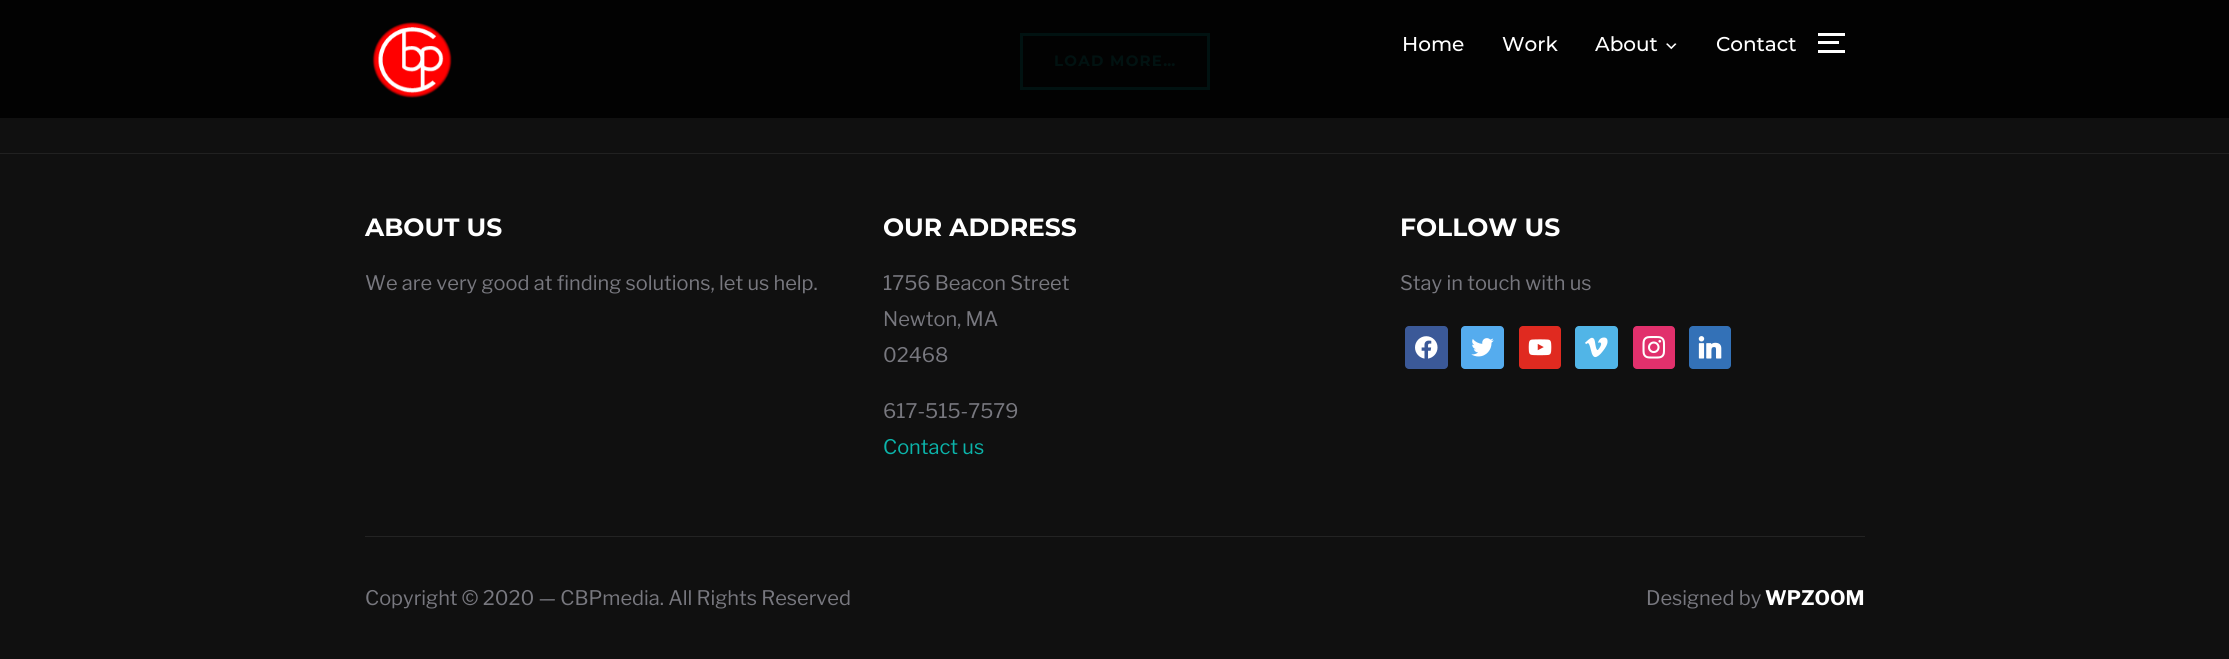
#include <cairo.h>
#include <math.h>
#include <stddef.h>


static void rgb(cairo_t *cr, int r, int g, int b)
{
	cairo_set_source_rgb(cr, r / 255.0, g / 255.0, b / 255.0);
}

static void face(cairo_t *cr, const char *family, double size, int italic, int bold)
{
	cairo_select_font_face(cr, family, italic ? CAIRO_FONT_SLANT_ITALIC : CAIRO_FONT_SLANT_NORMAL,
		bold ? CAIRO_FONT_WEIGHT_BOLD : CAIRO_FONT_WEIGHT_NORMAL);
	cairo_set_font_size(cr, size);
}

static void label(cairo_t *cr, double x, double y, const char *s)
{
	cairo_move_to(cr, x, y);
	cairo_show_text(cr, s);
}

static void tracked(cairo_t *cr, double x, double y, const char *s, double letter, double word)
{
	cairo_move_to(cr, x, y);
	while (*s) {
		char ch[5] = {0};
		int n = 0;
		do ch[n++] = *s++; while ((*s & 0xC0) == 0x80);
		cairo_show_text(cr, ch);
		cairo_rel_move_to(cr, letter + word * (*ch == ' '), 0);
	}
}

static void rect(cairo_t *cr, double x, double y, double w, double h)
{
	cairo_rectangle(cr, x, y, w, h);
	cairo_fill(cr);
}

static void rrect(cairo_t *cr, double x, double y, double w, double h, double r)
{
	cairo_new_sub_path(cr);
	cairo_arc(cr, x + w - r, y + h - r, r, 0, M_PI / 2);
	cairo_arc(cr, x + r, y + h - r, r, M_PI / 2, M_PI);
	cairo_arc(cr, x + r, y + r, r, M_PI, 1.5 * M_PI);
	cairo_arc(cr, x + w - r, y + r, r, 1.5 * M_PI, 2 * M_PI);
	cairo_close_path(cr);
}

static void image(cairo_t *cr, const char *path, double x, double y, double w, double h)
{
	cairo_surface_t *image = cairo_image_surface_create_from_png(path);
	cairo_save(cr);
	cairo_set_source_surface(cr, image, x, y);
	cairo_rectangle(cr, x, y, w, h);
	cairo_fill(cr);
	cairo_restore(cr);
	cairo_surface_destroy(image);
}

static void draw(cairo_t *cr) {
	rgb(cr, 16, 16, 16);
	cairo_paint(cr);
	rgb(cr, 2, 2, 2);
	rect(cr, 0, 0, 2229, 118);
	image(cr, "image0.png", 372, 22, 80, 76);
	face(cr, "Montserrat Medium", 20, 0, 0);
	rgb(cr, 255, 255, 255);
	label(cr, 1402, 51, "Home");
	label(cr, 1502, 51, "Work");
	label(cr, 1595, 51, "About");
	image(cr, "image1.png", 1666, 43, 11, 7);
	label(cr, 1716, 51, "Contact");
	rect(cr, 1818, 33, 27, 3);
	rect(cr, 1818, 41, 21, 3);
	rect(cr, 1818, 50, 27, 3);
	rgb(cr, 33, 33, 33);
	rect(cr, 0, 153, 2229, 1);
	cairo_rectangle(cr, 1021.5, 34.5, 187, 54);
	rgb(cr, 1, 18, 17);
	cairo_set_line_width(cr, 3);
	cairo_stroke(cr);
	face(cr, "Montserrat", 15, 0, 1);
	tracked(cr, 1054, 66, "LOAD MORE…", 1.25, 0);
	face(cr, "Montserrat", 25, 0, 1);
	rgb(cr, 255, 255, 255);
	label(cr, 365, 236, "ABOUT US");
	face(cr, "Libre Franklin", 20, 0, 0);
	rgb(cr, 120, 120, 127);
	label(cr, 365, 290, "We are very good at finding solutions, let us help.");
	face(cr, "Montserrat", 25, 0, 1);
	rgb(cr, 255, 255, 255);
	label(cr, 883, 236, "OUR ADDRESS");
	face(cr, "Libre Franklin", 20, 0, 0);
	rgb(cr, 120, 120, 127);
	label(cr, 883, 290, "1756 Beacon Street");
	label(cr, 883, 326, "Newton, MA");
	label(cr, 883, 362, "02468");
	label(cr, 883, 418, "617-515-7579");
	rgb(cr, 11, 180, 170);
	label(cr, 883, 454, "Contact us");
	face(cr, "Montserrat", 25, 0, 1);
	rgb(cr, 255, 255, 255);
	label(cr, 1400, 236, "FOLLOW US");
	face(cr, "Libre Franklin", 20, 0, 0);
	rgb(cr, 120, 120, 127);
	label(cr, 1400, 290, "Stay in touch with us");
	rgb(cr, 59, 89, 152);
	rrect(cr, 1405, 326, 43, 43, 4);
	cairo_fill(cr);
	image(cr, "image2.png", 1415, 336, 23, 23);
	rgb(cr, 85, 172, 238);
	rrect(cr, 1461, 326, 43, 43, 4);
	cairo_fill(cr);
	image(cr, "image3.png", 1471, 338, 23, 19);
	rgb(cr, 224, 42, 32);
	rrect(cr, 1519, 326, 42, 43, 4);
	cairo_fill(cr);
	image(cr, "image4.png", 1528, 339, 24, 17);
	rgb(cr, 81, 181, 231);
	rrect(cr, 1575, 326, 43, 43, 4);
	cairo_fill(cr);
	image(cr, "image5.png", 1585, 337, 23, 21);
	rgb(cr, 225, 48, 108);
	rrect(cr, 1633, 326, 42, 43, 4);
	cairo_fill(cr);
	image(cr, "image6.png", 1642, 336, 24, 23);
	rgb(cr, 51, 113, 183);
	rrect(cr, 1689, 326, 42, 43, 4);
	cairo_fill(cr);
	image(cr, "image7.png", 1698, 336, 24, 23);
	rgb(cr, 35, 35, 35);
	rect(cr, 365, 536, 1500, 1);
	rgb(cr, 120, 120, 127);
	label(cr, 365, 605, "Copyright © 2020 — CBPmedia. All Rights Reserved");
	label(cr, 1646, 605, "Designed by");
	face(cr, "Libre Franklin", 20, 0, 1);
	rgb(cr, 255, 255, 255);
	label(cr, 1765, 605, "WPZOOM");
}

int main(void) {
	cairo_surface_t *surface = cairo_image_surface_create(CAIRO_FORMAT_RGB24, 2229, 659);
	cairo_t *cr = cairo_create(surface);
	cairo_font_options_t *options = cairo_font_options_create();
	cairo_font_options_set_hint_metrics(options, CAIRO_HINT_METRICS_OFF);
	cairo_font_options_set_hint_style(options, CAIRO_HINT_STYLE_NONE);
	cairo_set_font_options(cr, options);
	cairo_set_miter_limit(cr, 4);
	draw(cr);
	cairo_surface_write_to_png(surface, "render.png");
	cairo_font_options_destroy(options);
	cairo_destroy(cr);
	cairo_surface_destroy(surface);
	return 0;
}
